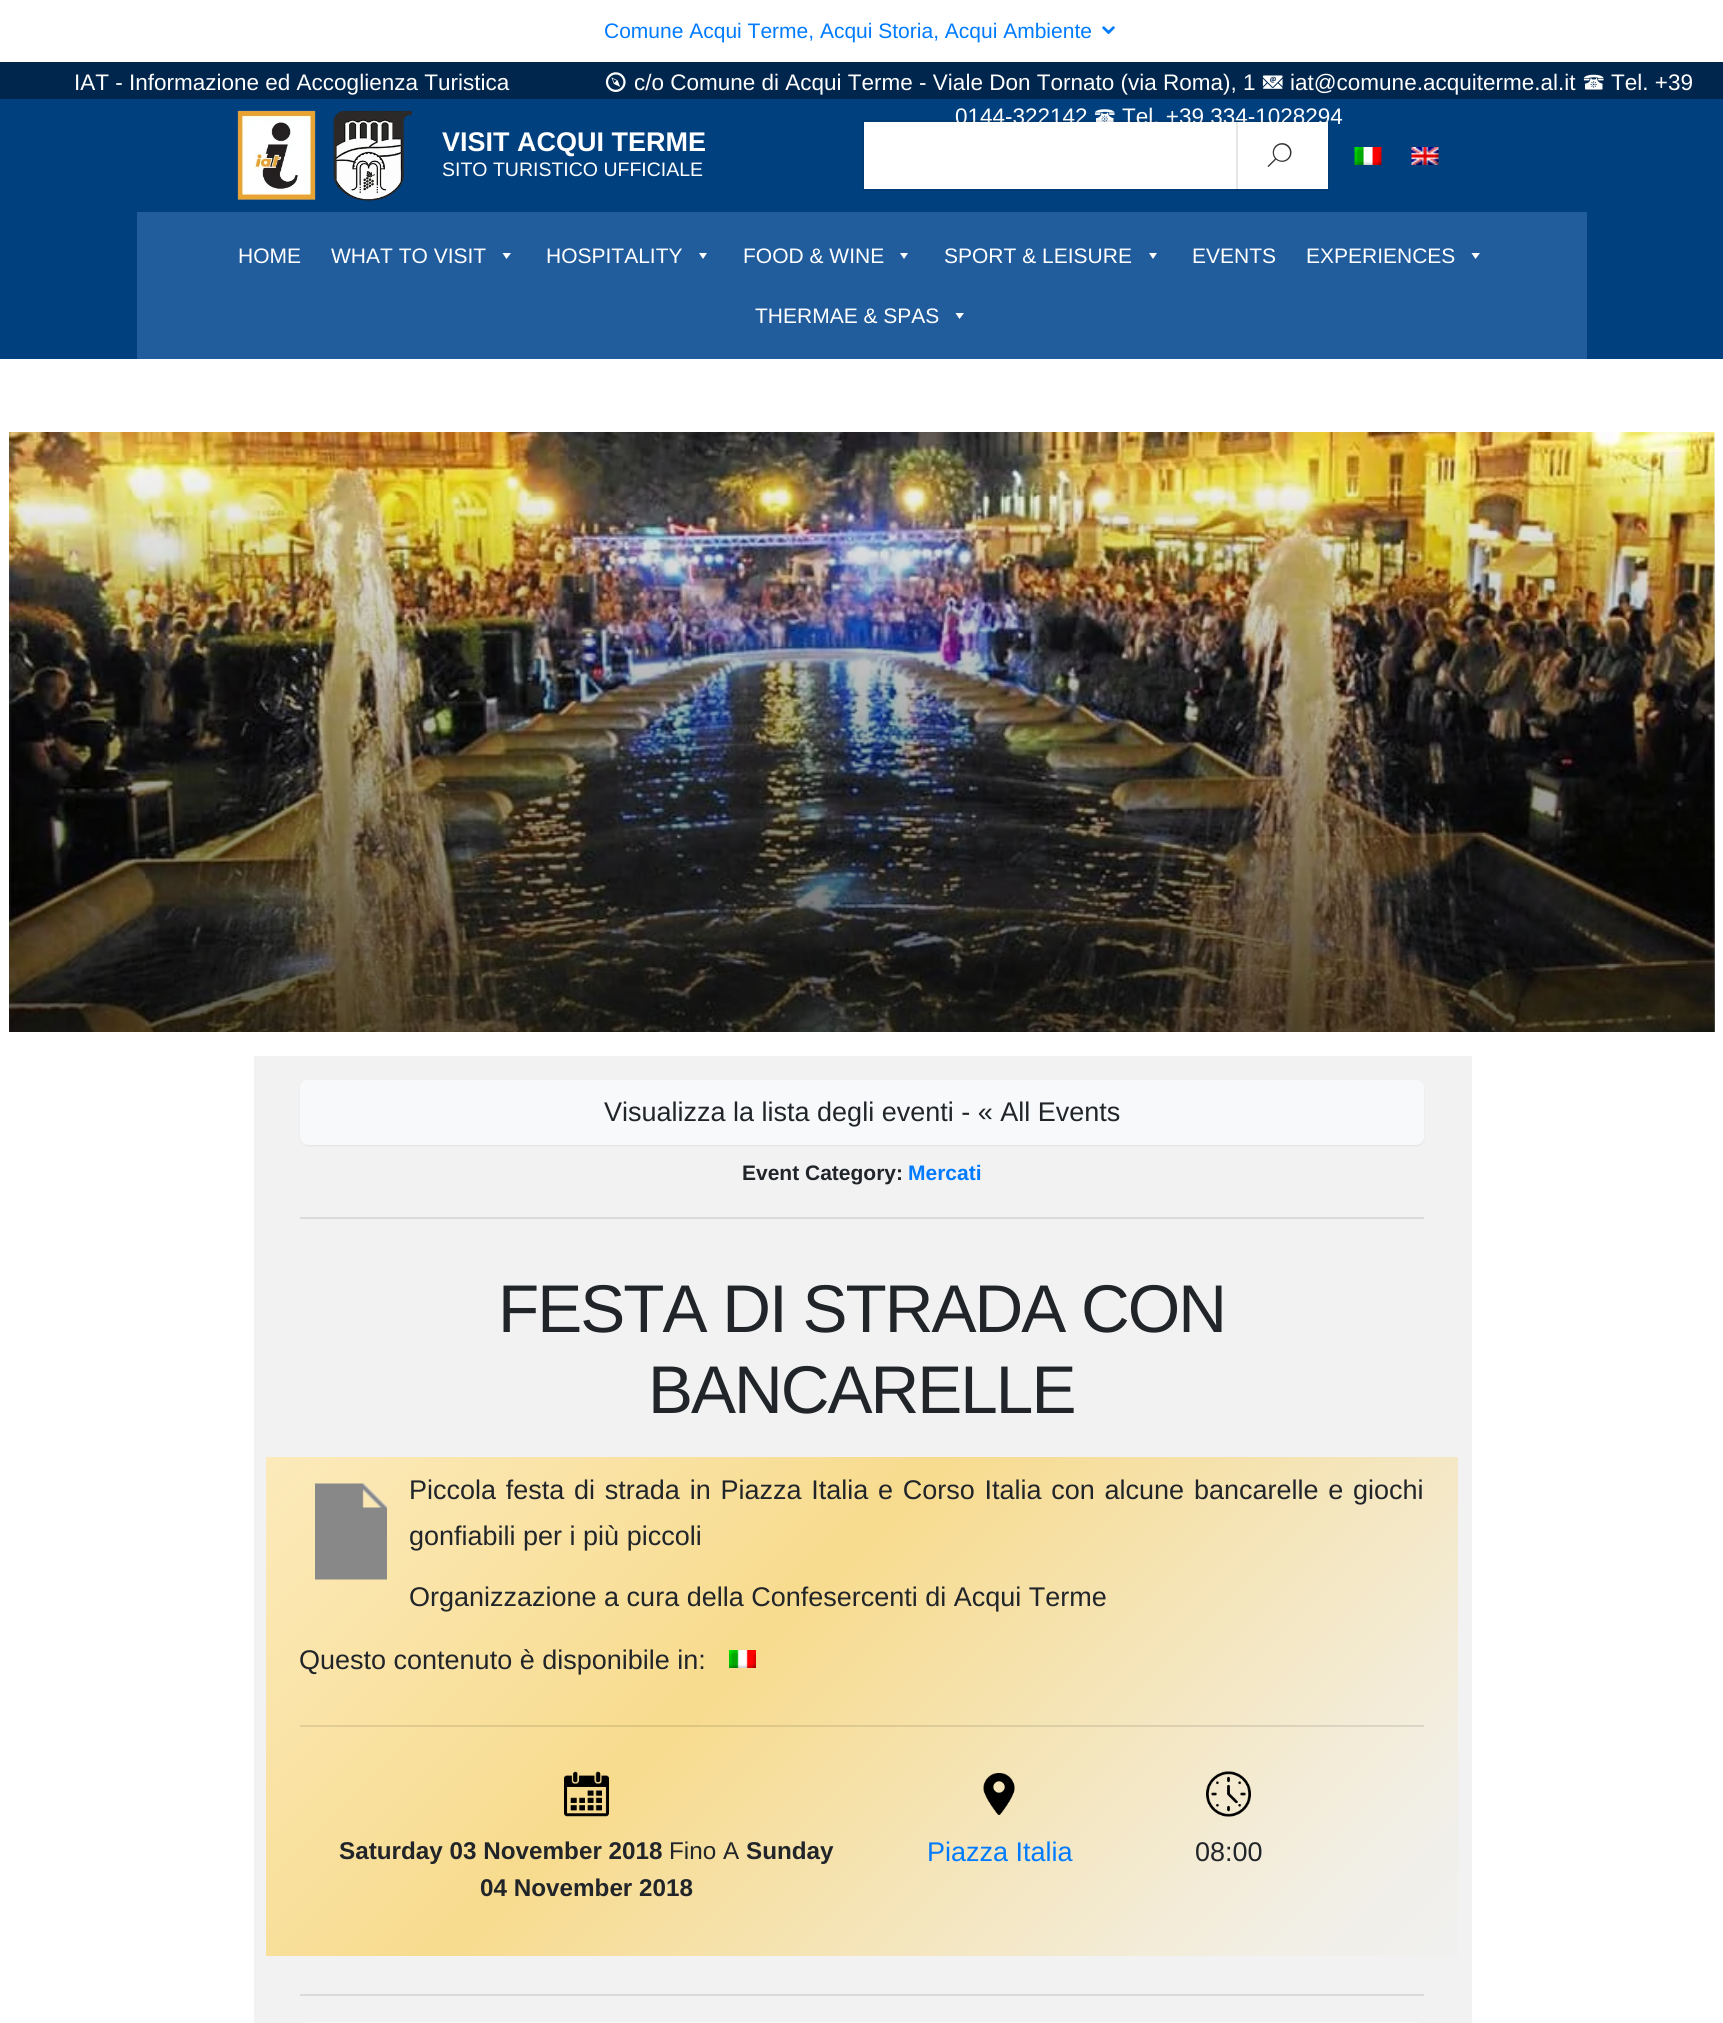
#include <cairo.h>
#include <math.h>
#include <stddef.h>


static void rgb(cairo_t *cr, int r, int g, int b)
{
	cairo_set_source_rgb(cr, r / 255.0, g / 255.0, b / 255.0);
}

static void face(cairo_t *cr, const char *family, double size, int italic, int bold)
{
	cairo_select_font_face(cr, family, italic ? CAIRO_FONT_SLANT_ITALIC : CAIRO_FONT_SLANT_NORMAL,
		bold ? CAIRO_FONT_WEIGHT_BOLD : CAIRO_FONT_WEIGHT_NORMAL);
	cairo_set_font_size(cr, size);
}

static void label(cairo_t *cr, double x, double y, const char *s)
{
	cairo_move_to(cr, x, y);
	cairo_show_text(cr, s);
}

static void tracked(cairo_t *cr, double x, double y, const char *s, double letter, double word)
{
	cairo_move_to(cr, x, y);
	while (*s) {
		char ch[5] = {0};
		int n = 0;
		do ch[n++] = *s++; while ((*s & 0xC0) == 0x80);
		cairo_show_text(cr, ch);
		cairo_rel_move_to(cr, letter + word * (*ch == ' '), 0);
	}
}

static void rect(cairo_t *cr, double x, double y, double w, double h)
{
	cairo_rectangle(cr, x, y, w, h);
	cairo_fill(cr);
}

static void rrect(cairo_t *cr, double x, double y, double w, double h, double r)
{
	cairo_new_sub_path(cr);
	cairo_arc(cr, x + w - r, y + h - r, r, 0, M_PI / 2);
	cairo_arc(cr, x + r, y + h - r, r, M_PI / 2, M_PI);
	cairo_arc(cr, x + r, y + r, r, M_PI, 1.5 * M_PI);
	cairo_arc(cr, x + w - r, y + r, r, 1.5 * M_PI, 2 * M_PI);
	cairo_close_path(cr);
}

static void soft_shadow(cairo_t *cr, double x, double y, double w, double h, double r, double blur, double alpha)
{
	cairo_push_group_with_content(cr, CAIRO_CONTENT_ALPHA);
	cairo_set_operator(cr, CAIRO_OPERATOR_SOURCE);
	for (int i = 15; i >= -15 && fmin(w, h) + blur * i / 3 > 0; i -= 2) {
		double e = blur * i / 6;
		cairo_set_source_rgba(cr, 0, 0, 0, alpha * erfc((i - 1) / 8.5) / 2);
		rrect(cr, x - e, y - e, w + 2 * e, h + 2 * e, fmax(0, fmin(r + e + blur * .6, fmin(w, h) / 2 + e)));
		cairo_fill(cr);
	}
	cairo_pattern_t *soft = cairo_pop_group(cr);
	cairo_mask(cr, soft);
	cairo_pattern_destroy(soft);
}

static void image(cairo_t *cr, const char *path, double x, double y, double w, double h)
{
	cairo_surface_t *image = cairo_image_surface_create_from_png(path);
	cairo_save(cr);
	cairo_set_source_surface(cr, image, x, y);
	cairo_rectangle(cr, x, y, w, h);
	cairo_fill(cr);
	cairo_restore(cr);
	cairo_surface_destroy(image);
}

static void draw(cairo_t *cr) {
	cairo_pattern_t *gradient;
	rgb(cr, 255, 255, 255);
	cairo_paint(cr);
	face(cr, "Liberation Sans", 21, 0, 0);
	rgb(cr, 0, 123, 255);
	label(cr, 604, 38, "Comune Acqui Terme, Acqui Storia, Acqui Ambiente");
	image(cr, "image0.png", 1102, 26, 13, 8);
	rgb(cr, 0, 38, 77);
	rect(cr, 0, 62, 1723, 37);
	face(cr, "Liberation Sans", 22.5, 0, 0);
	rgb(cr, 255, 255, 255);
	label(cr, 74, 90, "IAT - Informazione ed Accoglienza Turistica");
	image(cr, "image1.png", 605, 72, 21, 20);
	label(cr, 634, 90, "c/o Comune di Acqui Terme - Viale Don Tornato (via Roma), 1");
	image(cr, "image2.png", 1262, 75, 21, 14);
	label(cr, 1290, 90, "iat@comune.acquiterme.al.it");
	image(cr, "image3.png", 1583, 74, 21, 16);
	label(cr, 1611, 90, "Tel. +39");
	rgb(cr, 0, 64, 127);
	rect(cr, 0, 99, 1723, 260);
	rgb(cr, 255, 255, 255);
	label(cr, 955, 124, "0144-322142");
	image(cr, "image4.png", 1094, 109, 21, 13);
	label(cr, 1122, 124, "Tel. +39 334-1028294");
	image(cr, "image5.png", 237, 110, 175, 94);
	face(cr, "Liberation Sans", 27, 0, 1);
	label(cr, 442, 151, "VISIT ACQUI TERME");
	face(cr, "Liberation Sans", 19.5, 0, 0);
	label(cr, 442, 176, "SITO TURISTICO UFFICIALE");
	cairo_rectangle(cr, 864, 121, 374, 69);
	cairo_set_source_rgba(cr, 0, 0, 0, 0.1);
	cairo_stroke(cr);
	rgb(cr, 255, 255, 255);
	rect(cr, 864, 122, 374, 67);
	cairo_rectangle(cr, 1237, 121, 91, 69);
	cairo_set_source_rgba(cr, 0, 0, 0, 0.1);
	cairo_stroke(cr);
	rgb(cr, 255, 255, 255);
	rect(cr, 1238, 122, 90, 67);
	image(cr, "image6.png", 1267, 143, 25, 24);
	image(cr, "image7.png", 1354, 147, 28, 18);
	image(cr, "image8.png", 1411, 147, 28, 18);
	rgb(cr, 33, 92, 156);
	rect(cr, 137, 212, 1450, 147);
	face(cr, "Liberation Sans", 21, 0, 0);
	rgb(cr, 255, 255, 255);
	label(cr, 238, 263, "HOME");
	label(cr, 331, 263, "WHAT TO VISIT");
	cairo_new_path(cr);
	cairo_move_to(cr, 511, 253);
	cairo_line_to(cr, 506.5, 259);
	cairo_line_to(cr, 502.5, 253);
	cairo_close_path(cr);
	cairo_fill(cr);
	label(cr, 546, 263, "HOSPITALITY");
	cairo_new_path(cr);
	cairo_move_to(cr, 707, 253);
	cairo_line_to(cr, 703, 259);
	cairo_line_to(cr, 699, 253);
	cairo_close_path(cr);
	cairo_fill(cr);
	label(cr, 743, 263, "FOOD & WINE");
	cairo_new_path(cr);
	cairo_move_to(cr, 908, 253);
	cairo_line_to(cr, 904, 259);
	cairo_line_to(cr, 900, 253);
	cairo_close_path(cr);
	cairo_fill(cr);
	label(cr, 944, 263, "SPORT & LEISURE");
	cairo_new_path(cr);
	cairo_move_to(cr, 1157, 253);
	cairo_line_to(cr, 1153, 259);
	cairo_line_to(cr, 1149, 253);
	cairo_close_path(cr);
	cairo_fill(cr);
	label(cr, 1192, 263, "EVENTS");
	label(cr, 1306, 263, "EXPERIENCES");
	cairo_new_path(cr);
	cairo_move_to(cr, 1480, 253);
	cairo_line_to(cr, 1475.5, 259);
	cairo_line_to(cr, 1471.5, 253);
	cairo_close_path(cr);
	cairo_fill(cr);
	label(cr, 755, 323, "THERMAE & SPAS");
	cairo_new_path(cr);
	cairo_move_to(cr, 964, 313);
	cairo_line_to(cr, 959.5, 319);
	cairo_line_to(cr, 955.5, 313);
	cairo_close_path(cr);
	cairo_fill(cr);
	image(cr, "image9.png", 9, 432, 1706, 600);
	gradient = cairo_pattern_create_linear(862, 432, 862, 1032);
	cairo_pattern_add_color_stop_rgba(gradient, 0, 0, 0, 0, 0);
	cairo_pattern_add_color_stop_rgba(gradient, 1, 0, 0, 0, 0.65);
	cairo_set_source(cr, gradient);
	cairo_pattern_destroy(gradient);
	rect(cr, 9, 452, 1706, 580);
	rgb(cr, 242, 242, 242);
	rect(cr, 254, 1056, 1218, 967);
	rgb(cr, 0, 0, 0);
	soft_shadow(cr, 300, 1082, 1124, 64, 8, 1, 0.07);
	rgb(cr, 248, 249, 250);
	rrect(cr, 301, 1081, 1122, 63, 7);
	cairo_fill_preserve(cr);
	cairo_stroke(cr);
	face(cr, "Liberation Sans", 27, 0, 0);
	rgb(cr, 33, 37, 41);
	label(cr, 604, 1121, "Visualizza la lista degli eventi - « All Events");
	face(cr, "Liberation Sans", 21, 0, 1);
	label(cr, 742, 1180, "Event Category:");
	rgb(cr, 0, 123, 255);
	label(cr, 908, 1180, "Mercati");
	rgb(cr, 218, 218, 218);
	rect(cr, 300, 1217, 1124, 2);
	face(cr, "Liberation Sans", 67.5, 0, 0);
	rgb(cr, 33, 37, 41);
	tracked(cr, 498, 1332, "FESTA DI STRADA CON", -2, 0);
	tracked(cr, 648, 1413, "BANCARELLE", -2, 0);
	gradient = cairo_pattern_create_linear(439, 1283, 1285, 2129);
	cairo_pattern_add_color_stop_rgba(gradient, 0, 0.988, 0.918, 0.733, 1);
	cairo_pattern_add_color_stop_rgba(gradient, 0.4, 0.969, 0.859, 0.557, 1);
	cairo_pattern_add_color_stop_rgba(gradient, 0.89, 0.949, 0.937, 0.902, 1);
	cairo_pattern_add_color_stop_rgba(gradient, 1, 0.941, 0.941, 0.941, 1);
	cairo_set_source(cr, gradient);
	cairo_pattern_destroy(gradient);
	rect(cr, 266, 1457, 1192, 499);
	gradient = cairo_pattern_create_linear(439, 1283, 1285, 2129);
	cairo_pattern_add_color_stop_rgba(gradient, 0, 0.89, 0.827, 0.659, 1);
	cairo_pattern_add_color_stop_rgba(gradient, 0.4, 0.871, 0.773, 0.502, 1);
	cairo_pattern_add_color_stop_rgba(gradient, 0.89, 0.855, 0.843, 0.812, 1);
	cairo_pattern_add_color_stop_rgba(gradient, 1, 0.847, 0.847, 0.847, 1);
	cairo_set_source(cr, gradient);
	cairo_pattern_destroy(gradient);
	rect(cr, 300, 1725, 1124, 2);
	image(cr, "image10.png", 315, 1483, 72, 97);
	face(cr, "Liberation Sans", 27, 0, 0);
	rgb(cr, 33, 37, 41);
	tracked(cr, 409, 1499, "Piccola festa di strada in Piazza Italia e Corso Italia con alcune bancarelle e giochi", 0, 2.25);
	label(cr, 409, 1545, "gonfiabili per i più piccoli");
	label(cr, 409, 1606, "Organizzazione a cura della Confesercenti di Acqui Terme");
	label(cr, 299, 1669, "Questo contenuto è disponibile in:");
	image(cr, "image11.png", 729, 1650, 27, 18);
	image(cr, "image12.png", 564, 1771, 45, 46);
	face(cr, "Liberation Sans", 24.25, 0, 1);
	label(cr, 339, 1859, "Saturday 03 November 2018");
	face(cr, "Liberation Sans", 24.25, 0, 0);
	label(cr, 669, 1859, "Fino A");
	face(cr, "Liberation Sans", 24.25, 0, 1);
	label(cr, 746, 1859, "Sunday");
	label(cr, 480, 1896, "04 November 2018");
	image(cr, "image13.png", 983, 1773, 32, 42);
	face(cr, "Liberation Sans", 27, 0, 0);
	rgb(cr, 0, 123, 255);
	label(cr, 927, 1861, "Piazza Italia");
	image(cr, "image14.png", 1206, 1771, 45, 46);
	rgb(cr, 33, 37, 41);
	label(cr, 1195, 1861, "08:00");
	rgb(cr, 218, 218, 218);
	rect(cr, 300, 1994, 1124, 2);
	rrect(cr, 301, 2023, 1122, 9, 7);
	rgb(cr, 248, 249, 250);
	cairo_stroke(cr);
}

int main(void) {
	cairo_surface_t *surface = cairo_image_surface_create(CAIRO_FORMAT_RGB24, 1723, 2023);
	cairo_t *cr = cairo_create(surface);
	cairo_font_options_t *options = cairo_font_options_create();
	cairo_font_options_set_hint_metrics(options, CAIRO_HINT_METRICS_OFF);
	cairo_font_options_set_hint_style(options, CAIRO_HINT_STYLE_NONE);
	cairo_set_font_options(cr, options);
	cairo_set_miter_limit(cr, 4);
	draw(cr);
	cairo_surface_write_to_png(surface, "render.png");
	cairo_font_options_destroy(options);
	cairo_destroy(cr);
	cairo_surface_destroy(surface);
	return 0;
}
